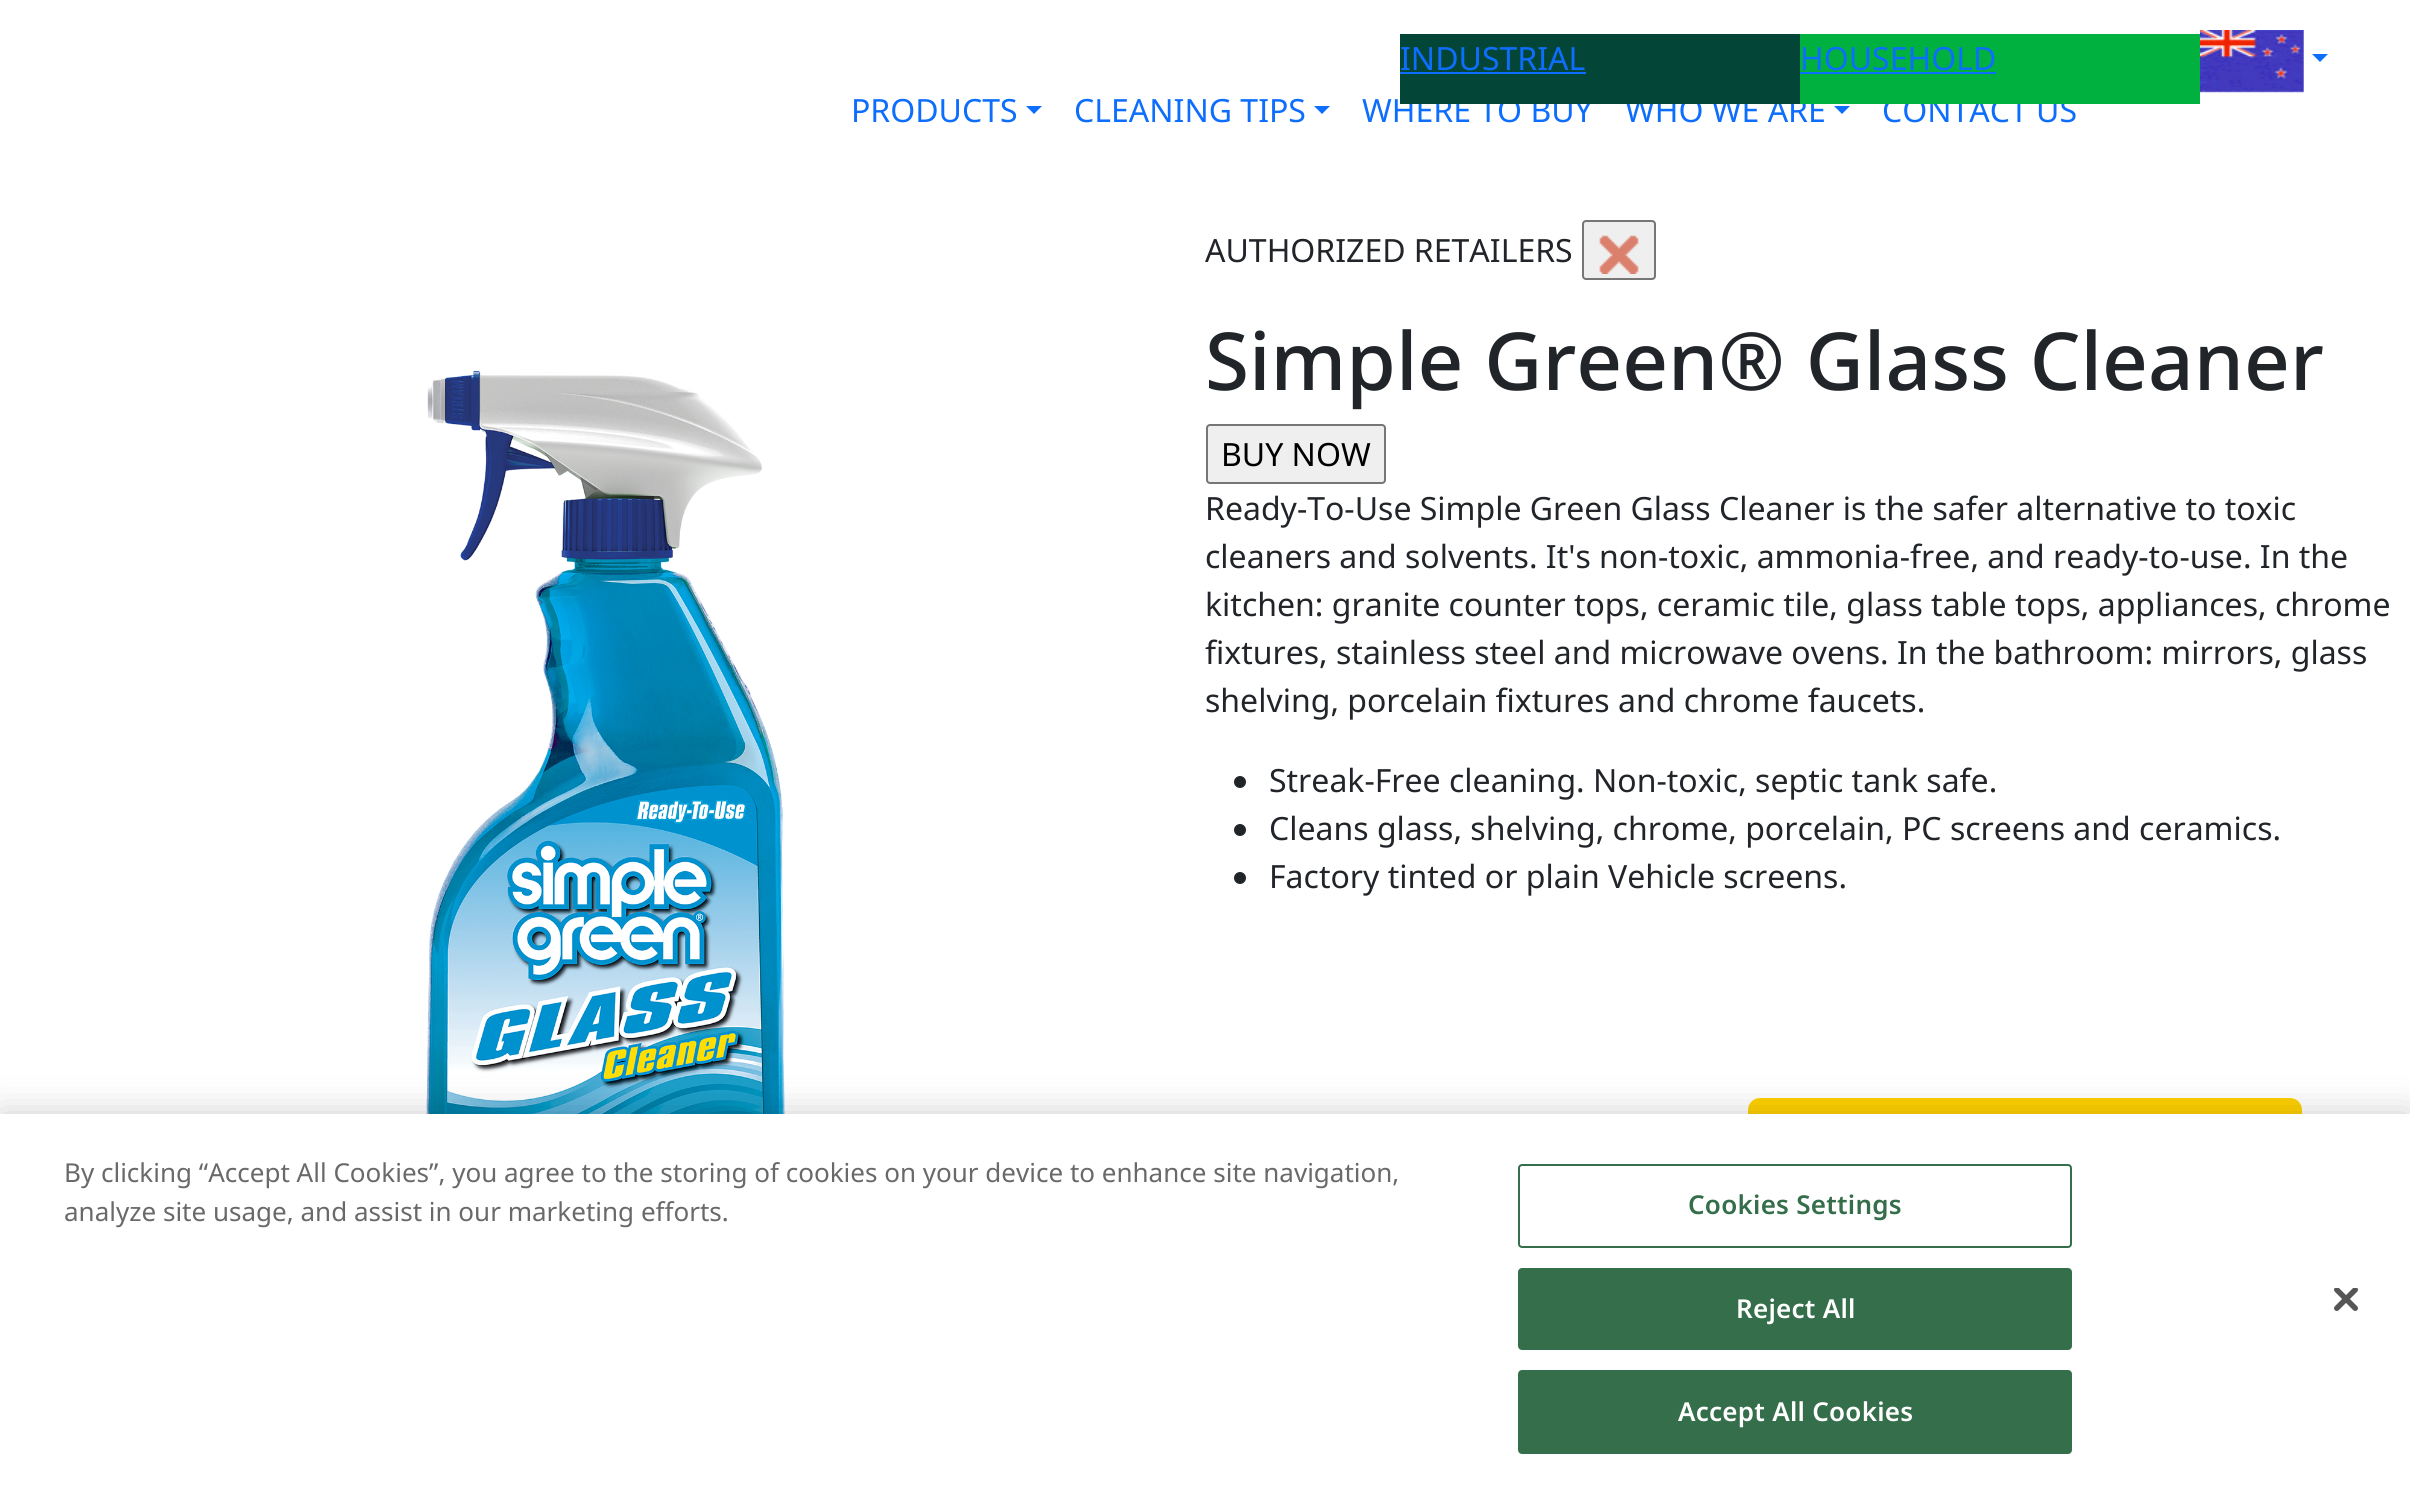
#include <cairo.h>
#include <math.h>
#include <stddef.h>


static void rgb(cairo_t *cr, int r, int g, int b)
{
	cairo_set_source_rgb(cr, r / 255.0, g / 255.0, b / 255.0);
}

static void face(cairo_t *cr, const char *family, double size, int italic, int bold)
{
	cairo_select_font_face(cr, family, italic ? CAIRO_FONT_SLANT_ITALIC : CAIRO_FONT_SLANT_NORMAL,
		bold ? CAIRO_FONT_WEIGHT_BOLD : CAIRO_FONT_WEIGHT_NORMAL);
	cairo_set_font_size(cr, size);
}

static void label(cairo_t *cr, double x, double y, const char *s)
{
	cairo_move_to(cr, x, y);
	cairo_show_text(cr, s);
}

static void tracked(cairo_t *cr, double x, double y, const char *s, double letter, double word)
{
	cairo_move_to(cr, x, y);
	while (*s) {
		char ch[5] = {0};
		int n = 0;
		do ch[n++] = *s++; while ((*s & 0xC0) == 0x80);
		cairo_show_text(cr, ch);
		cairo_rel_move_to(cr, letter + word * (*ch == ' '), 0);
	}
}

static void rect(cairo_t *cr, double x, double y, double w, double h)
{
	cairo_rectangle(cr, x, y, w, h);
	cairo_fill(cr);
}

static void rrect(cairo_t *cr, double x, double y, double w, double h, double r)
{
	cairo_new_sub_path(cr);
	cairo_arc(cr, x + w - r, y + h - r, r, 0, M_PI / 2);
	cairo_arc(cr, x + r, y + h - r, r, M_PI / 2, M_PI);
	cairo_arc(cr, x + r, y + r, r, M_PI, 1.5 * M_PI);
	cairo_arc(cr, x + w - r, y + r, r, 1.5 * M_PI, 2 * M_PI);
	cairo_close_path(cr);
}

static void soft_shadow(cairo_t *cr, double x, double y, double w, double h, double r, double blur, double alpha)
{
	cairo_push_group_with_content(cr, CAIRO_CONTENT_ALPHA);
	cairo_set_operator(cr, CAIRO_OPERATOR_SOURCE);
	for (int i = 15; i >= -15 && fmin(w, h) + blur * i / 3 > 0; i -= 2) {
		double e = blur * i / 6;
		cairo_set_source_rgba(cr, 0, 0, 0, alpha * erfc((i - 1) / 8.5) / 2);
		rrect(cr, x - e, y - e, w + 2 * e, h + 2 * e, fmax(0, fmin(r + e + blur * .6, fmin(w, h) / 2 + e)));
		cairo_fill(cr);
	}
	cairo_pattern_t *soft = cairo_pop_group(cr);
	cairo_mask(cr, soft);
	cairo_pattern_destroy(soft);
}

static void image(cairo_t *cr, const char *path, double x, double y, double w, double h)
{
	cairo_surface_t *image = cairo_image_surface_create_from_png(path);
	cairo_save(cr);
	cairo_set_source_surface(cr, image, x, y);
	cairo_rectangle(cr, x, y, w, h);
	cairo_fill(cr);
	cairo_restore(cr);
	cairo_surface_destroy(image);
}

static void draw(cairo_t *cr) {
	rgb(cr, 255, 255, 255);
	cairo_paint(cr);
	face(cr, "Noto Sans", 32, 0, 0);
	rgb(cr, 13, 110, 253);
	label(cr, 1362, 122, "WHERE TO BUY");
	label(cr, 1625, 122, "WHO WE ARE");
	rgb(cr, 3, 70, 56);
	rect(cr, 1400, 34, 400, 70);
	rgb(cr, 13, 110, 253);
	label(cr, 1400, 70, "INDUSTRIAL");
	rect(cr, 1400, 72, 186, 2);
	label(cr, 1882, 122, "CONTACT US");
	rgb(cr, 0, 177, 64);
	rect(cr, 1800, 34, 400, 70);
	rgb(cr, 13, 110, 253);
	label(cr, 1800, 70, "HOUSEHOLD");
	rect(cr, 1800, 72, 196, 2);
	image(cr, "image0.png", 2200, 30, 104, 63);
	cairo_new_path(cr);
	cairo_move_to(cr, 2312, 54);
	cairo_line_to(cr, 2328, 54);
	cairo_line_to(cr, 2320, 62);
	cairo_close_path(cr);
	cairo_fill(cr);
	label(cr, 851, 122, "PRODUCTS");
	cairo_new_path(cr);
	cairo_move_to(cr, 1026, 106);
	cairo_line_to(cr, 1042, 106);
	cairo_line_to(cr, 1034, 114);
	cairo_close_path(cr);
	cairo_fill(cr);
	label(cr, 1074, 122, "CLEANING TIPS");
	cairo_new_path(cr);
	cairo_move_to(cr, 1314, 106);
	cairo_line_to(cr, 1330, 106);
	cairo_line_to(cr, 1322, 114);
	cairo_close_path(cr);
	cairo_fill(cr);
	cairo_new_path(cr);
	cairo_move_to(cr, 1834, 106);
	cairo_line_to(cr, 1850, 106);
	cairo_line_to(cr, 1842, 114);
	cairo_close_path(cr);
	cairo_fill(cr);
	image(cr, "image1.png", 426, 370, 359, 744);
	rgb(cr, 33, 37, 41);
	label(cr, 1205, 262, "AUTHORIZED RETAILERS");
	rgb(cr, 239, 239, 239);
	rrect(cr, 1583, 221, 72, 58, 3);
	cairo_fill_preserve(cr);
	rgb(cr, 118, 118, 118);
	cairo_stroke(cr);
	image(cr, "image2.png", 1599, 235, 40, 39);
	face(cr, "Noto Sans Medium", 80, 0, 0);
	rgb(cr, 33, 37, 41);
	label(cr, 1205, 390, "Simple Green® Glass Cleaner");
	rgb(cr, 239, 239, 239);
	rrect(cr, 1207, 425, 178, 58, 3);
	cairo_fill_preserve(cr);
	rgb(cr, 118, 118, 118);
	cairo_stroke(cr);
	face(cr, "Noto Sans", 32, 0, 0);
	rgb(cr, 0, 0, 0);
	label(cr, 1221, 466, "BUY NOW");
	rgb(cr, 33, 37, 41);
	label(cr, 1205, 520, "Ready-To-Use Simple Green Glass Cleaner is the safer alternative to toxic");
	label(cr, 1205, 568, "cleaners and solvents. It's non-toxic, ammonia-free, and ready-to-use. In the");
	label(cr, 1205, 616, "kitchen: granite counter tops, ceramic tile, glass table tops, appliances, chrome");
	label(cr, 1205, 664, "fixtures, stainless steel and microwave ovens. In the bathroom: mirrors, glass");
	label(cr, 1205, 712, "shelving, porcelain fixtures and chrome faucets.");
	cairo_new_path(cr);
	cairo_arc(cr, 1240, 782, 6, 0, 2 * M_PI);
	cairo_fill(cr);
	label(cr, 1269, 792, "Streak-Free cleaning. Non-toxic, septic tank safe.");
	cairo_new_path(cr);
	cairo_arc(cr, 1240, 830, 6, 0, 2 * M_PI);
	cairo_fill(cr);
	label(cr, 1269, 840, "Cleans glass, shelving, chrome, porcelain, PC screens and ceramics.");
	cairo_new_path(cr);
	cairo_arc(cr, 1240, 878, 6, 0, 2 * M_PI);
	cairo_fill(cr);
	label(cr, 1269, 888, "Factory tinted or plain Vehicle screens.");
	rgb(cr, 255, 209, 0);
	rrect(cr, 1748, 1098, 554, 96, 12);
	cairo_fill(cr);
	rgb(cr, 0, 0, 0);
	soft_shadow(cr, 0, 1114, 2410, 380, 0, 18, 0.2);
	rgb(cr, 255, 255, 255);
	rect(cr, 0, 1114, 2410, 380);
	face(cr, "Noto Sans", 26.02, 0, 0);
	rgb(cr, 105, 105, 105);
	label(cr, 64, 1182, "By clicking “Accept All Cookies”, you agree to the storing of cookies on your device to enhance site navigation,");
	label(cr, 64, 1221, "analyze site usage, and assist in our marketing efforts.");
	rrect(cr, 1519, 1165, 552, 82, 3);
	rgb(cr, 52, 110, 74);
	cairo_stroke(cr);
	face(cr, "Noto Sans SemiBold", 26.02, 0, 0);
	tracked(cr, 1688, 1214, "Cookies Settings", 0.25, 0);
	rrect(cr, 1519, 1269, 552, 80, 3);
	cairo_fill_preserve(cr);
	cairo_stroke(cr);
	rgb(cr, 255, 255, 255);
	tracked(cr, 1736, 1318, "Reject All", 0.25, 0);
	rgb(cr, 52, 110, 74);
	rrect(cr, 1519, 1371, 552, 82, 3);
	cairo_fill_preserve(cr);
	cairo_stroke(cr);
	rgb(cr, 255, 255, 255);
	tracked(cr, 1678, 1421, "Accept All Cookies", 0.25, 0);
	image(cr, "image3.png", 2334, 1288, 24, 23);
}

int main(void) {
	cairo_surface_t *surface = cairo_image_surface_create(CAIRO_FORMAT_RGB24, 2410, 1494);
	cairo_t *cr = cairo_create(surface);
	cairo_font_options_t *options = cairo_font_options_create();
	cairo_font_options_set_hint_metrics(options, CAIRO_HINT_METRICS_OFF);
	cairo_font_options_set_hint_style(options, CAIRO_HINT_STYLE_NONE);
	cairo_set_font_options(cr, options);
	cairo_set_miter_limit(cr, 4);
	draw(cr);
	cairo_surface_write_to_png(surface, "render.png");
	cairo_font_options_destroy(options);
	cairo_destroy(cr);
	cairo_surface_destroy(surface);
	return 0;
}
